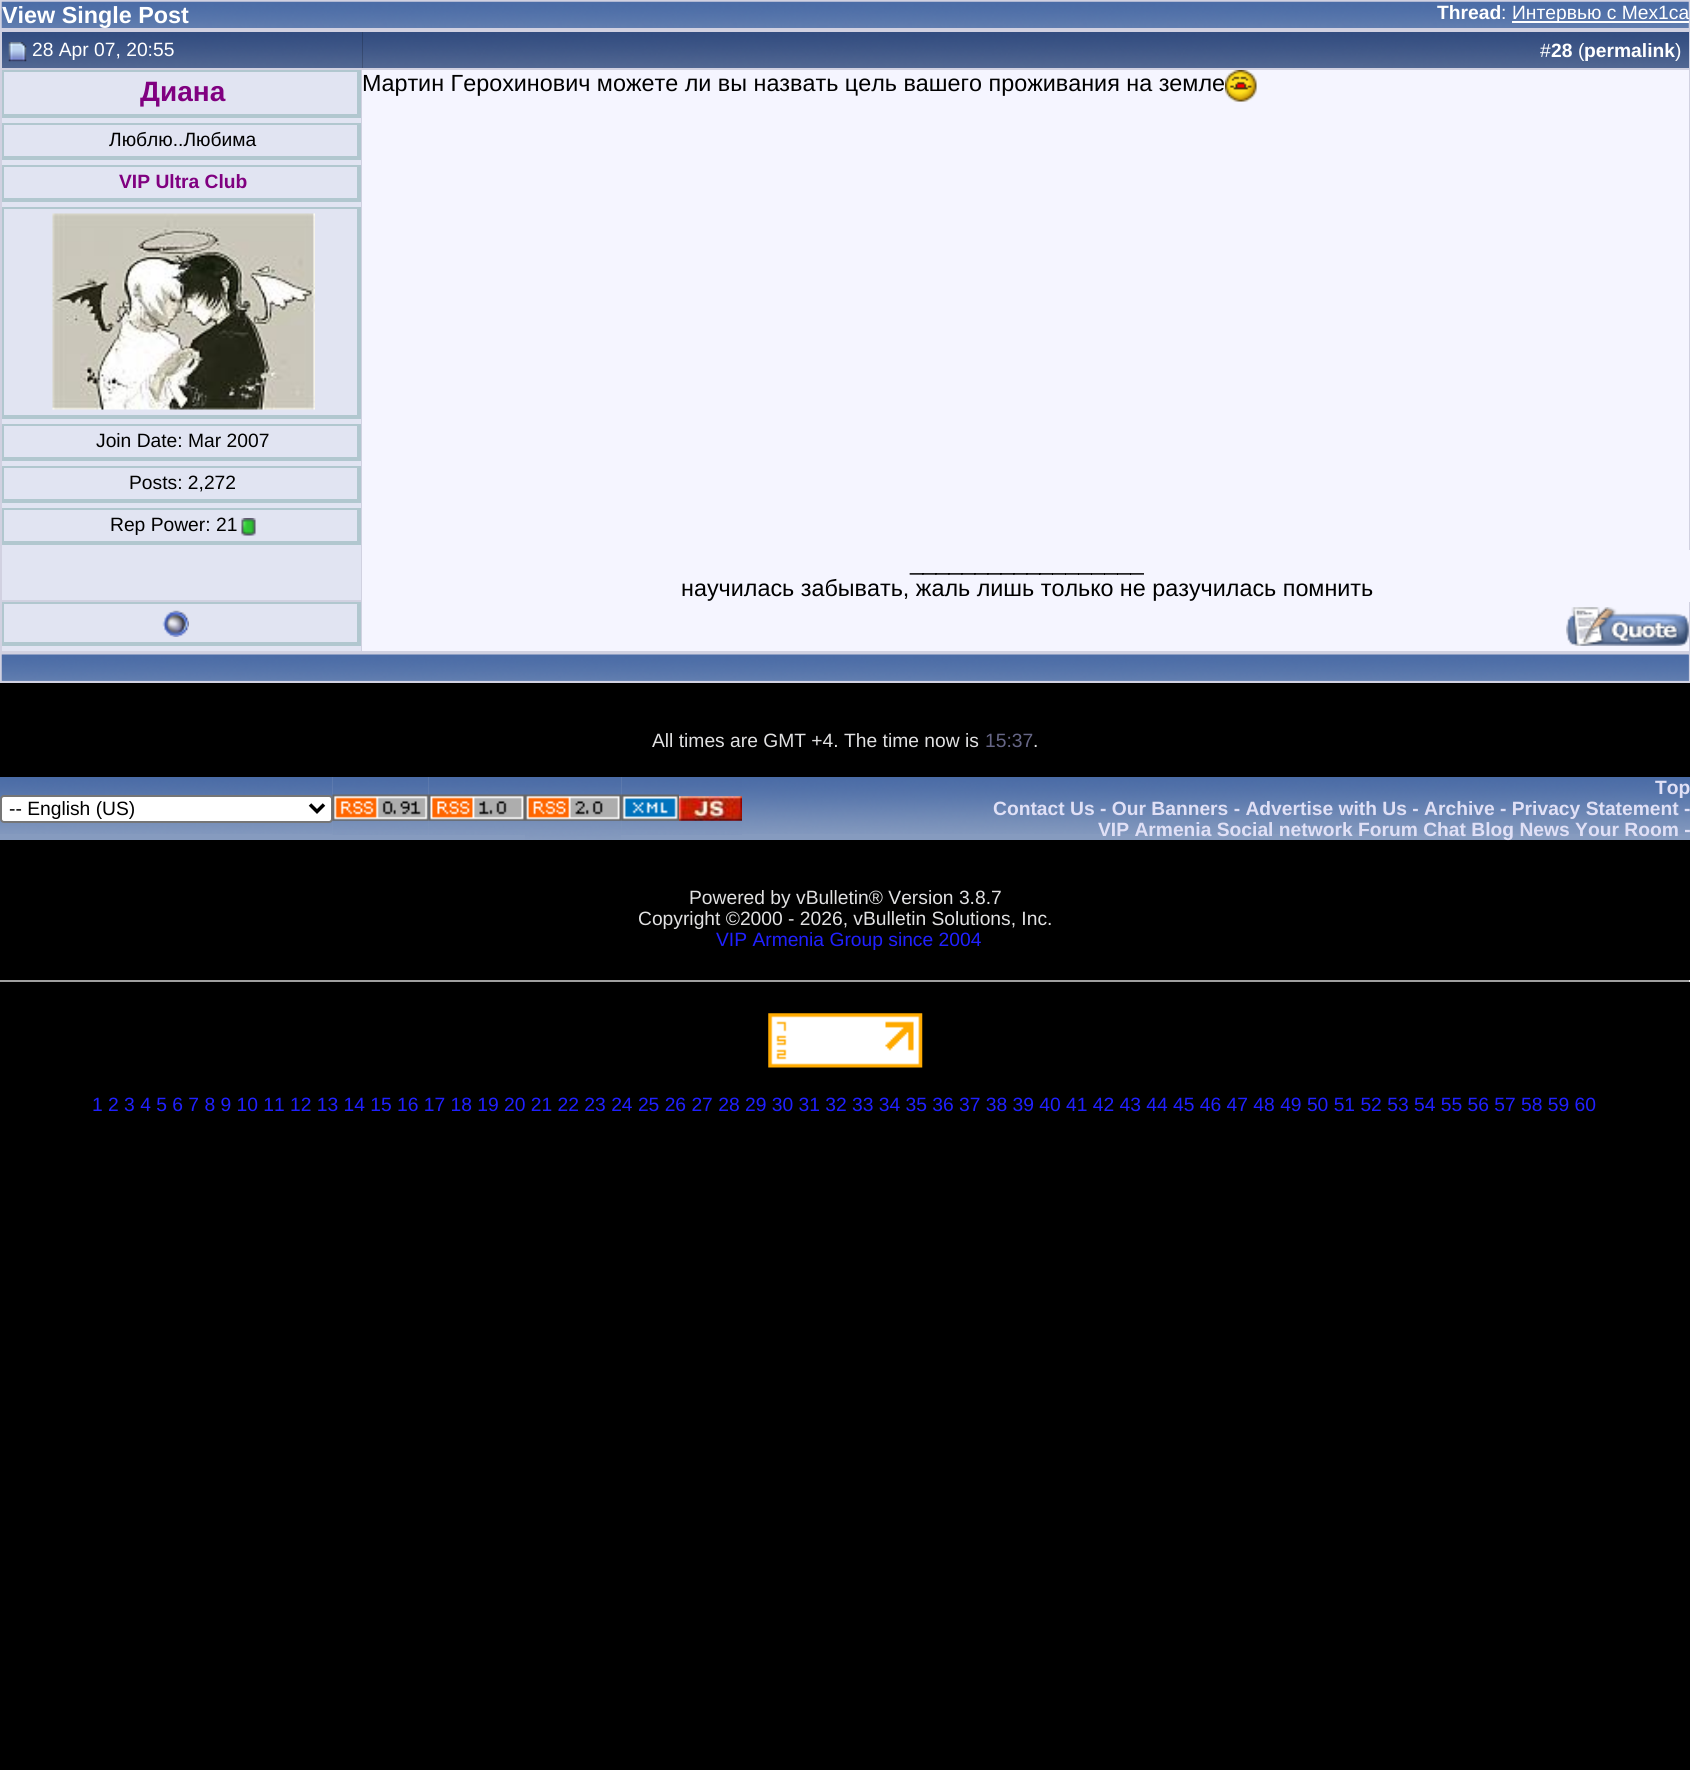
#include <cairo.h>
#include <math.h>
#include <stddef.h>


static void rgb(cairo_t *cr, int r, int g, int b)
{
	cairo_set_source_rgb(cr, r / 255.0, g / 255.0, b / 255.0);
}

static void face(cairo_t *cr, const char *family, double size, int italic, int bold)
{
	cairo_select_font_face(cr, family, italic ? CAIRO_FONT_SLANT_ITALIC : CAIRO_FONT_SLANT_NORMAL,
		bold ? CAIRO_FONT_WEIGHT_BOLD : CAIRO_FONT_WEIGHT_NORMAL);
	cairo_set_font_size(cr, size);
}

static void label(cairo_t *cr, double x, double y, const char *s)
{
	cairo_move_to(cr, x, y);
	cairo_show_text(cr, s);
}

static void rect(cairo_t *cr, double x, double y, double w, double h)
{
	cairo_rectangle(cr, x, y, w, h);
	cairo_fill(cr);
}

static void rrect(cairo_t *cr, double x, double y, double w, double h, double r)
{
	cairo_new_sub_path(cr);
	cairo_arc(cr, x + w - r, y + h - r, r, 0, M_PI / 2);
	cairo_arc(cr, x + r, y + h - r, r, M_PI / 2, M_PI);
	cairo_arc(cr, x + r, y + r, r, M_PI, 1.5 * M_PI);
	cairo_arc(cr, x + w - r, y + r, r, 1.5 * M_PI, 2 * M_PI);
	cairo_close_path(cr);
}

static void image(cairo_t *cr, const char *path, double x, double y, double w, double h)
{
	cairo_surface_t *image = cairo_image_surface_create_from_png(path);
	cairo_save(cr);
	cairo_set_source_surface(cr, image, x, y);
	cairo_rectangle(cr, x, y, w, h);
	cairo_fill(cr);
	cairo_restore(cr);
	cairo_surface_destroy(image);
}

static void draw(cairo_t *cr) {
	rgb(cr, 0, 0, 0);
	cairo_paint(cr);
	rgb(cr, 209, 209, 225);
	rect(cr, 0, 0, 1690, 30);
	image(cr, "image0.png", 1, 1, 1688, 27);
	face(cr, "Liberation Sans", 23.35, 0, 1);
	rgb(cr, 255, 255, 255);
	label(cr, 2, 23, "View Single Post");
	face(cr, "Liberation Sans", 19.25, 0, 1);
	label(cr, 1437, 19, "Thread");
	face(cr, "Liberation Sans", 19.25, 0, 0);
	label(cr, 1501, 19, ":");
	rect(cr, 1512, 21, 177, 2);
	label(cr, 1512, 19, "Интервью с Mex1ca");
	image(cr, "image1.png", 2, 32, 361, 36);
	rgb(cr, 209, 209, 225);
	rect(cr, 0, 30, 1690, 2);
	rect(cr, 0, 68, 362, 2);
	rect(cr, 0, 30, 2, 520);
	image(cr, "image2.png", 8, 42, 19, 20);
	rgb(cr, 255, 255, 255);
	label(cr, 32, 56, "28 Apr 07, 20:55");
	image(cr, "image3.png", 362, 32, 1327, 36);
	rgb(cr, 209, 209, 225);
	rect(cr, 1689, 30, 1, 520);
	rect(cr, 362, 68, 1328, 2);
	rgb(cr, 255, 255, 255);
	label(cr, 1540, 57, "#");
	face(cr, "Liberation Sans", 19.25, 0, 1);
	label(cr, 1551, 57, "28");
	face(cr, "Liberation Sans", 19.25, 0, 0);
	label(cr, 1578, 57, "(");
	face(cr, "Liberation Sans", 19.25, 0, 1);
	label(cr, 1584, 57, "permalink");
	face(cr, "Liberation Sans", 19.25, 0, 0);
	label(cr, 1675, 57, ")");
	rgb(cr, 225, 228, 242);
	rect(cr, 2, 72, 359, 528);
	rgb(cr, 209, 209, 225);
	rect(cr, 361, 70, 1, 583);
	rgb(cr, 177, 199, 207);
	rect(cr, 2, 70, 359, 2);
	rect(cr, 357, 70, 4, 47);
	rect(cr, 2, 114, 359, 4);
	rect(cr, 2, 70, 2, 47);
	face(cr, "Liberation Sans", 28, 0, 1);
	rgb(cr, 128, 0, 128);
	label(cr, 140, 101, "Диана");
	rgb(cr, 177, 199, 207);
	rect(cr, 2, 123, 359, 2);
	rect(cr, 357, 123, 4, 36);
	rect(cr, 2, 156, 359, 4);
	rect(cr, 2, 123, 2, 36);
	face(cr, "Liberation Sans", 19.25, 0, 0);
	rgb(cr, 0, 0, 0);
	label(cr, 109, 146, "Люблю..Любима");
	rgb(cr, 177, 199, 207);
	rect(cr, 2, 165, 359, 2);
	rect(cr, 357, 165, 4, 36);
	rect(cr, 2, 198, 359, 4);
	rect(cr, 2, 165, 2, 36);
	face(cr, "Liberation Sans", 19.25, 0, 1);
	rgb(cr, 128, 0, 128);
	label(cr, 119, 188, "VIP Ultra Club");
	rgb(cr, 177, 199, 207);
	rect(cr, 2, 207, 359, 2);
	rect(cr, 357, 207, 4, 211);
	rect(cr, 2, 415, 359, 4);
	rect(cr, 2, 207, 2, 211);
	image(cr, "image4.png", 52, 213, 263, 197);
	rect(cr, 2, 424, 359, 2);
	rect(cr, 357, 424, 4, 36);
	rect(cr, 2, 457, 359, 4);
	rect(cr, 2, 424, 2, 36);
	face(cr, "Liberation Sans", 19.25, 0, 0);
	rgb(cr, 0, 0, 0);
	label(cr, 96, 447, "Join Date: Mar 2007");
	rgb(cr, 177, 199, 207);
	rect(cr, 2, 466, 359, 2);
	rect(cr, 357, 466, 4, 36);
	rect(cr, 2, 499, 359, 4);
	rect(cr, 2, 466, 2, 36);
	rgb(cr, 0, 0, 0);
	label(cr, 129, 489, "Posts: 2,272");
	rgb(cr, 177, 199, 207);
	rect(cr, 2, 508, 359, 2);
	rect(cr, 357, 508, 4, 36);
	rect(cr, 2, 541, 359, 4);
	rect(cr, 2, 508, 2, 36);
	rgb(cr, 0, 0, 0);
	label(cr, 110, 531, "Rep Power: 21");
	image(cr, "image5.png", 241, 518, 15, 18);
	rgb(cr, 245, 245, 255);
	rect(cr, 362, 70, 1327, 480);
	face(cr, "Liberation Sans", 23.35, 0, 0);
	rgb(cr, 0, 0, 0);
	label(cr, 362, 91, "Мартин Герохинович можете ли вы назвать цель вашего проживания на земле");
	image(cr, "image6.png", 1225, 70, 32, 32);
	rgb(cr, 209, 209, 225);
	rect(cr, 0, 600, 362, 2);
	rect(cr, 0, 550, 2, 52);
	rgb(cr, 245, 245, 255);
	rect(cr, 362, 550, 1328, 52);
	rgb(cr, 0, 0, 0);
	label(cr, 910, 570, "__________________");
	label(cr, 681, 596, "научилась забывать, жаль лишь только не разучилась помнить");
	rgb(cr, 225, 228, 242);
	rect(cr, 2, 604, 359, 47);
	rgb(cr, 209, 209, 225);
	rect(cr, 0, 651, 362, 2);
	rect(cr, 0, 602, 2, 51);
	rgb(cr, 177, 199, 207);
	rect(cr, 2, 602, 359, 2);
	rect(cr, 357, 602, 4, 44);
	rect(cr, 2, 642, 359, 4);
	rect(cr, 2, 602, 2, 44);
	image(cr, "image7.png", 162, 610, 27, 27);
	rgb(cr, 245, 245, 255);
	rect(cr, 362, 602, 1327, 49);
	rgb(cr, 209, 209, 225);
	rect(cr, 1689, 602, 1, 51);
	rect(cr, 362, 651, 1328, 2);
	image(cr, "image8.png", 1566, 607, 123, 39);
	rect(cr, 0, 653, 1690, 30);
	rgb(cr, 134, 155, 191);
	rect(cr, 2, 655, 1687, 26);
	image(cr, "image9.png", 1, 654, 1688, 27);
	face(cr, "Liberation Sans", 19.25, 0, 0);
	rgb(cr, 225, 225, 226);
	label(cr, 652, 747, "All times are GMT +4. The time now is");
	rgb(cr, 102, 102, 134);
	label(cr, 985, 747, "15:37");
	rgb(cr, 225, 225, 226);
	label(cr, 1033, 747, ".");
	rgb(cr, 134, 155, 191);
	rect(cr, 0, 777, 429, 63);
	image(cr, "image10.png", 0, 777, 333, 57);
	image(cr, "image11.png", 332, 777, 97, 58);
	rgb(cr, 255, 255, 255);
	rrect(cr, 1, 796, 331, 26, 3);
	cairo_fill_preserve(cr);
	rgb(cr, 118, 118, 118);
	cairo_stroke(cr);
	cairo_new_path(cr);
	cairo_move_to(cr, 310, 804.5);
	cairo_line_to(cr, 317, 811.5);
	cairo_line_to(cr, 324, 804.5);
	rgb(cr, 0, 0, 0);
	cairo_set_line_width(cr, 3.5);
	cairo_stroke(cr);
	label(cr, 9, 815, "-- English (US)");
	image(cr, "image12.png", 332, 794, 97, 27);
	rgb(cr, 134, 155, 191);
	rect(cr, 429, 835, 96, 5);
	image(cr, "image13.png", 429, 777, 96, 58);
	image(cr, "image14.png", 428, 794, 97, 27);
	image(cr, "image15.png", 525, 777, 96, 63);
	rect(cr, 621, 777, 58, 63);
	image(cr, "image17.png", 621, 777, 58, 58);
	image(cr, "image16.png", 525, 794, 97, 27);
	image(cr, "image18.png", 621, 794, 58, 27);
	rect(cr, 679, 835, 63, 5);
	image(cr, "image19.png", 679, 777, 63, 58);
	image(cr, "image20.png", 679, 796, 63, 25);
	rect(cr, 742, 834, 948, 6);
	image(cr, "image21.png", 742, 777, 948, 57);
	face(cr, "Liberation Sans", 19.25, 0, 1);
	rgb(cr, 224, 224, 246);
	label(cr, 1655, 794, "Top");
	label(cr, 993, 815, "Contact Us - Our Banners - Advertise with Us - Archive - Privacy Statement -");
	label(cr, 1098, 836, "VIP Armenia Social network Forum Chat Blog News Your Room -");
	face(cr, "Liberation Sans", 19.25, 0, 0);
	rgb(cr, 225, 225, 226);
	label(cr, 689, 904, "Powered by vBulletin® Version 3.8.7");
	label(cr, 638, 925, "Copyright ©2000 - 2026, vBulletin Solutions, Inc.");
	rgb(cr, 32, 32, 255);
	label(cr, 716, 946, "VIP Armenia Group since 2004");
	rgb(cr, 159, 159, 159);
	rect(cr, 0, 980, 1690, 2);
	rgb(cr, 238, 238, 238);
	rect(cr, 1689, 980, 1, 2);
	image(cr, "image22.png", 768, 1013, 155, 55);
	rgb(cr, 32, 32, 255);
	label(cr, 92, 1111, "1 2 3 4 5 6 7 8 9 10 11 12 13 14 15 16 17 18 19 20 21 22 23 24 25 26 27 28 29 30 31 32 33 34 35 36 37 38 39 40 41 42 43 44 45 46 47 48 49 50 51 52 53 54 55 56 57 58 59 60");
}

int main(void) {
	cairo_surface_t *surface = cairo_image_surface_create(CAIRO_FORMAT_RGB24, 1690, 1770);
	cairo_t *cr = cairo_create(surface);
	cairo_font_options_t *options = cairo_font_options_create();
	cairo_font_options_set_hint_metrics(options, CAIRO_HINT_METRICS_OFF);
	cairo_font_options_set_hint_style(options, CAIRO_HINT_STYLE_NONE);
	cairo_set_font_options(cr, options);
	cairo_set_miter_limit(cr, 4);
	draw(cr);
	cairo_surface_write_to_png(surface, "render.png");
	cairo_font_options_destroy(options);
	cairo_destroy(cr);
	cairo_surface_destroy(surface);
	return 0;
}
